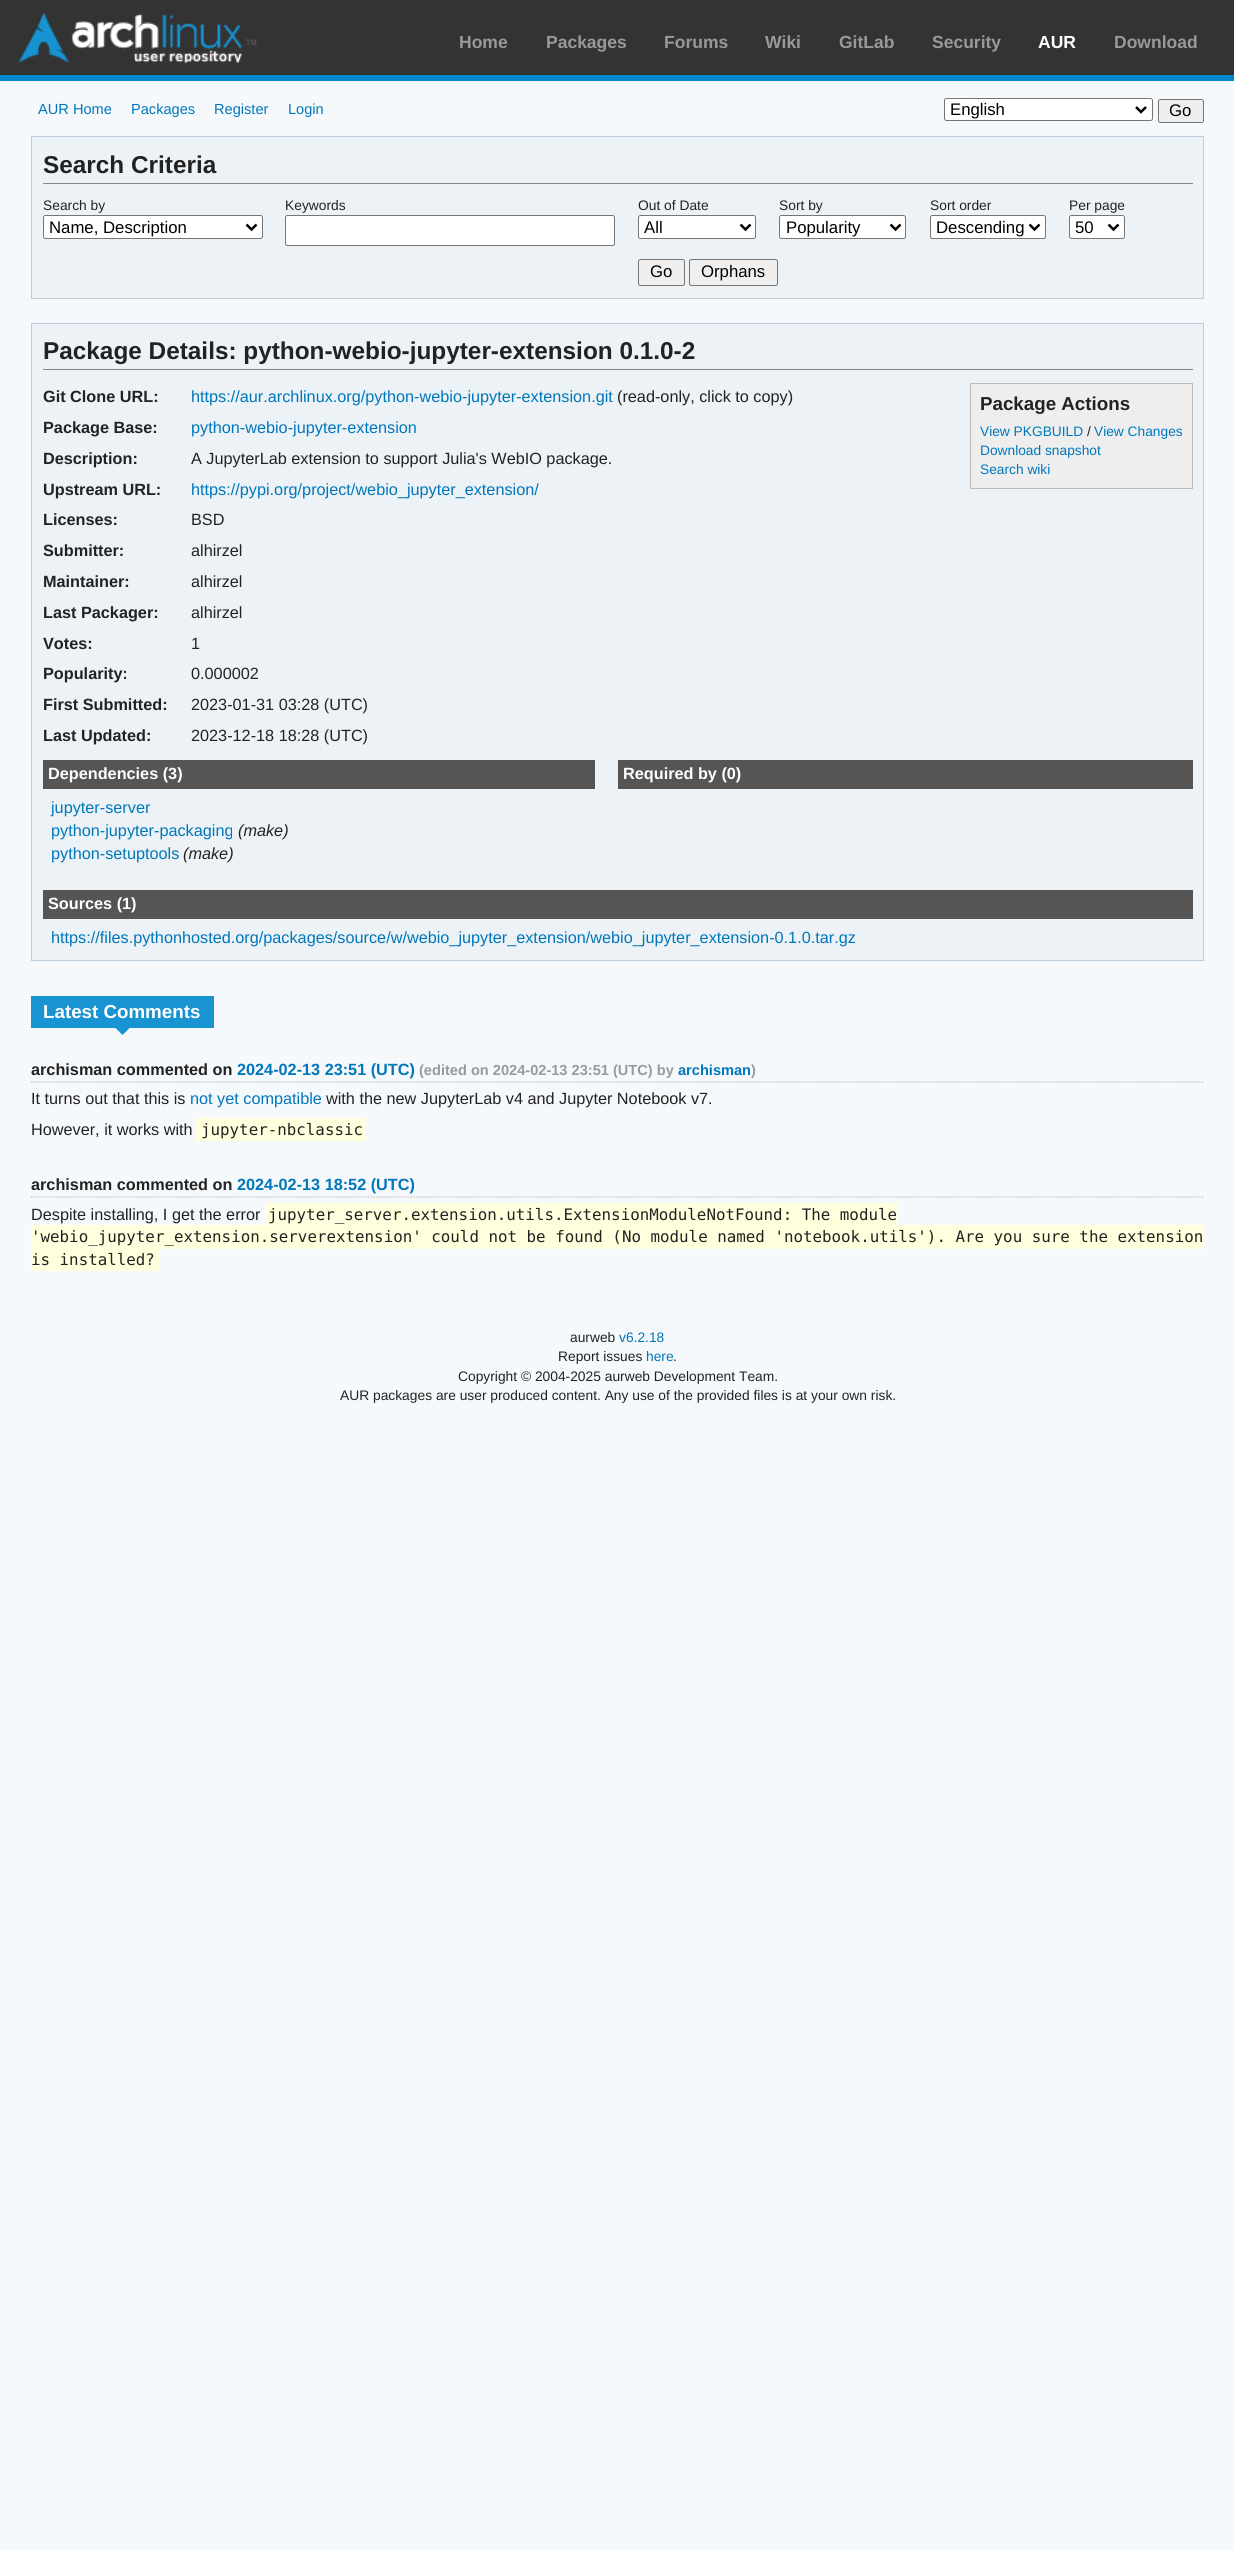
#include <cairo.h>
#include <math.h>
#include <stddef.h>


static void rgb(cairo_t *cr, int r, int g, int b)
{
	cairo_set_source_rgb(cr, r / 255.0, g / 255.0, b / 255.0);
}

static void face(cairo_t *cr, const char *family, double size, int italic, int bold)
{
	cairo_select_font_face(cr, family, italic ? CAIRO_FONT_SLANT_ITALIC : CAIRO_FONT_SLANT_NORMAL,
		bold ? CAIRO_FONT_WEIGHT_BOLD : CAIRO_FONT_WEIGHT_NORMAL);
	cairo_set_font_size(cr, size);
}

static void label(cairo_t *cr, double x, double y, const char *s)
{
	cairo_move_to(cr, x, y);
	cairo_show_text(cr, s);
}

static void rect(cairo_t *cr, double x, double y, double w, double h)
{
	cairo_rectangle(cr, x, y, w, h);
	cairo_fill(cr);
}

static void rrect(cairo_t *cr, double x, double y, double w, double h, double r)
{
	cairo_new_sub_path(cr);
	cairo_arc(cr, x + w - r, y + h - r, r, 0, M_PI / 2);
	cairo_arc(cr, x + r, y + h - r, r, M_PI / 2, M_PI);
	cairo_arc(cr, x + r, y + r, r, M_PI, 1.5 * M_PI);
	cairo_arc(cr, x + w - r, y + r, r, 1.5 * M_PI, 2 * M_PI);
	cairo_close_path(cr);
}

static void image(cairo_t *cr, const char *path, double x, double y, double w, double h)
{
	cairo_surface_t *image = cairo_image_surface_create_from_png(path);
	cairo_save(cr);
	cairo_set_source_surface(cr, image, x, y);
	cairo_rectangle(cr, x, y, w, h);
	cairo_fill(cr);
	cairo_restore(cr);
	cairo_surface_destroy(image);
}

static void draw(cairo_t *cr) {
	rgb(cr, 246, 249, 252);
	cairo_paint(cr);
	rgb(cr, 51, 51, 51);
	rect(cr, 0, 0, 1234, 75);
	rgb(cr, 0, 136, 204);
	rect(cr, 0, 75, 1234, 6);
	image(cr, "image0.png", 18, 12, 239, 51);
	face(cr, "Liberation Sans", 17.5, 0, 1);
	rgb(cr, 153, 153, 153);
	label(cr, 459, 48, "Home");
	label(cr, 546, 48, "Packages");
	label(cr, 664, 48, "Forums");
	label(cr, 765, 48, "Wiki");
	label(cr, 839, 48, "GitLab");
	label(cr, 932, 48, "Security");
	rgb(cr, 255, 255, 255);
	label(cr, 1038, 48, "AUR");
	rgb(cr, 153, 153, 153);
	label(cr, 1114, 48, "Download");
	face(cr, "Liberation Sans", 14.6, 0, 0);
	rgb(cr, 0, 119, 187);
	label(cr, 38, 114, "AUR Home");
	label(cr, 131, 114, "Packages");
	label(cr, 214, 114, "Register");
	label(cr, 288, 114, "Login");
	rgb(cr, 255, 255, 255);
	rrect(cr, 944.5, 98.5, 208, 22, 2);
	cairo_fill_preserve(cr);
	rgb(cr, 118, 118, 118);
	cairo_set_line_width(cr, 1);
	cairo_stroke(cr);
	cairo_new_path(cr);
	cairo_move_to(cr, 1136, 107);
	cairo_line_to(cr, 1141, 112);
	cairo_line_to(cr, 1146, 107);
	rgb(cr, 0, 0, 0);
	cairo_set_line_width(cr, 2.5);
	cairo_stroke(cr);
	face(cr, "Liberation Sans", 16.75, 0, 0);
	label(cr, 950, 115, "English");
	rgb(cr, 239, 239, 239);
	rrect(cr, 1158.5, 99.5, 45, 23, 2);
	cairo_fill_preserve(cr);
	rgb(cr, 118, 118, 118);
	cairo_set_line_width(cr, 1);
	cairo_stroke(cr);
	rgb(cr, 0, 0, 0);
	label(cr, 1169, 116, "Go");
	rgb(cr, 236, 242, 245);
	cairo_rectangle(cr, 31.5, 136.5, 1172, 162);
	cairo_fill_preserve(cr);
	rgb(cr, 187, 204, 221);
	cairo_stroke(cr);
	rgb(cr, 136, 136, 136);
	rect(cr, 43, 183, 1150, 1);
	face(cr, "Liberation Sans", 24.35, 0, 1);
	rgb(cr, 34, 34, 34);
	label(cr, 43, 173, "Search Criteria");
	face(cr, "Liberation Sans", 13.8, 0, 0);
	label(cr, 43, 210, "Search by");
	rgb(cr, 255, 255, 255);
	rrect(cr, 43.5, 215.5, 219, 23, 2);
	cairo_fill_preserve(cr);
	rgb(cr, 118, 118, 118);
	cairo_stroke(cr);
	cairo_new_path(cr);
	cairo_move_to(cr, 246.5, 224.5);
	cairo_line_to(cr, 251.5, 229.5);
	cairo_line_to(cr, 256.5, 224.5);
	rgb(cr, 0, 0, 0);
	cairo_set_line_width(cr, 2.5);
	cairo_stroke(cr);
	face(cr, "Liberation Sans", 16.75, 0, 0);
	label(cr, 49, 233, "Name, Description");
	face(cr, "Liberation Sans", 13.8, 0, 0);
	rgb(cr, 34, 34, 34);
	label(cr, 285, 210, "Keywords");
	rgb(cr, 255, 255, 255);
	rrect(cr, 285.5, 215.5, 329, 30, 2);
	cairo_fill_preserve(cr);
	rgb(cr, 118, 118, 118);
	cairo_set_line_width(cr, 1);
	cairo_stroke(cr);
	rgb(cr, 34, 34, 34);
	label(cr, 638, 210, "Out of Date");
	rgb(cr, 255, 255, 255);
	rrect(cr, 638.5, 215.5, 117, 23, 2);
	cairo_fill_preserve(cr);
	rgb(cr, 118, 118, 118);
	cairo_stroke(cr);
	cairo_new_path(cr);
	cairo_move_to(cr, 740.5, 224.5);
	cairo_line_to(cr, 745.5, 229.5);
	cairo_line_to(cr, 750.5, 224.5);
	rgb(cr, 0, 0, 0);
	cairo_set_line_width(cr, 2.5);
	cairo_stroke(cr);
	face(cr, "Liberation Sans", 16.75, 0, 0);
	label(cr, 644, 233, "All");
	face(cr, "Liberation Sans", 13.8, 0, 0);
	rgb(cr, 34, 34, 34);
	label(cr, 779, 210, "Sort by");
	rgb(cr, 255, 255, 255);
	rrect(cr, 779.5, 215.5, 126, 23, 2);
	cairo_fill_preserve(cr);
	rgb(cr, 118, 118, 118);
	cairo_set_line_width(cr, 1);
	cairo_stroke(cr);
	cairo_new_path(cr);
	cairo_move_to(cr, 890.5, 224.5);
	cairo_line_to(cr, 895.5, 229.5);
	cairo_line_to(cr, 900.5, 224.5);
	rgb(cr, 0, 0, 0);
	cairo_set_line_width(cr, 2.5);
	cairo_stroke(cr);
	face(cr, "Liberation Sans", 16.75, 0, 0);
	label(cr, 786, 233, "Popularity");
	face(cr, "Liberation Sans", 13.8, 0, 0);
	rgb(cr, 34, 34, 34);
	label(cr, 930, 210, "Sort order");
	rgb(cr, 255, 255, 255);
	rrect(cr, 930.5, 215.5, 115, 23, 2);
	cairo_fill_preserve(cr);
	rgb(cr, 118, 118, 118);
	cairo_set_line_width(cr, 1);
	cairo_stroke(cr);
	cairo_new_path(cr);
	cairo_move_to(cr, 1029.5, 224.5);
	cairo_line_to(cr, 1034.5, 229.5);
	cairo_line_to(cr, 1039.5, 224.5);
	rgb(cr, 0, 0, 0);
	cairo_set_line_width(cr, 2.5);
	cairo_stroke(cr);
	face(cr, "Liberation Sans", 16.75, 0, 0);
	label(cr, 936, 233, "Descending");
	face(cr, "Liberation Sans", 13.8, 0, 0);
	rgb(cr, 34, 34, 34);
	label(cr, 1069, 210, "Per page");
	rgb(cr, 255, 255, 255);
	rrect(cr, 1069.5, 215.5, 55, 23, 2);
	cairo_fill_preserve(cr);
	rgb(cr, 118, 118, 118);
	cairo_set_line_width(cr, 1);
	cairo_stroke(cr);
	cairo_new_path(cr);
	cairo_move_to(cr, 1108.5, 224.5);
	cairo_line_to(cr, 1113.5, 229.5);
	cairo_line_to(cr, 1118.5, 224.5);
	rgb(cr, 0, 0, 0);
	cairo_set_line_width(cr, 2.5);
	cairo_stroke(cr);
	face(cr, "Liberation Sans", 16.75, 0, 0);
	label(cr, 1075, 233, "50");
	rgb(cr, 239, 239, 239);
	rrect(cr, 638.5, 259.5, 46, 26, 2);
	cairo_fill_preserve(cr);
	rgb(cr, 118, 118, 118);
	cairo_set_line_width(cr, 1);
	cairo_stroke(cr);
	rgb(cr, 0, 0, 0);
	label(cr, 650, 277, "Go");
	rgb(cr, 239, 239, 239);
	rrect(cr, 689.5, 259.5, 88, 26, 2);
	cairo_fill_preserve(cr);
	rgb(cr, 118, 118, 118);
	cairo_stroke(cr);
	rgb(cr, 0, 0, 0);
	label(cr, 701, 277, "Orphans");
	rgb(cr, 236, 242, 245);
	cairo_rectangle(cr, 31.5, 323.5, 1172, 637);
	cairo_fill_preserve(cr);
	rgb(cr, 187, 204, 221);
	cairo_stroke(cr);
	rgb(cr, 136, 136, 136);
	rect(cr, 43, 369, 1150, 1);
	face(cr, "Liberation Sans", 24.35, 0, 1);
	rgb(cr, 34, 34, 34);
	label(cr, 43, 359, "Package Details: python-webio-jupyter-extension 0.1.0-2");
	face(cr, "Liberation Sans", 16.25, 0, 1);
	label(cr, 43, 402, "Git Clone URL:");
	face(cr, "Liberation Sans", 16.25, 0, 0);
	rgb(cr, 0, 119, 187);
	label(cr, 191, 402, "https://aur.archlinux.org/python-webio-jupyter-extension.git");
	rgb(cr, 34, 34, 34);
	label(cr, 617, 402, "(read-only, click to copy)");
	face(cr, "Liberation Sans", 16.25, 0, 1);
	label(cr, 43, 433, "Package Base:");
	face(cr, "Liberation Sans", 16.25, 0, 0);
	rgb(cr, 0, 119, 187);
	label(cr, 191, 433, "python-webio-jupyter-extension");
	face(cr, "Liberation Sans", 16.25, 0, 1);
	rgb(cr, 34, 34, 34);
	label(cr, 43, 464, "Description:");
	face(cr, "Liberation Sans", 16.25, 0, 0);
	label(cr, 191, 464, "A JupyterLab extension to support Julia's WebIO package.");
	face(cr, "Liberation Sans", 16.25, 0, 1);
	label(cr, 43, 495, "Upstream URL:");
	face(cr, "Liberation Sans", 16.25, 0, 0);
	rgb(cr, 0, 119, 187);
	label(cr, 191, 495, "https://pypi.org/project/webio_jupyter_extension/");
	face(cr, "Liberation Sans", 16.25, 0, 1);
	rgb(cr, 34, 34, 34);
	label(cr, 43, 525, "Licenses:");
	face(cr, "Liberation Sans", 16.25, 0, 0);
	label(cr, 191, 525, "BSD");
	face(cr, "Liberation Sans", 16.25, 0, 1);
	label(cr, 43, 556, "Submitter:");
	face(cr, "Liberation Sans", 16.25, 0, 0);
	label(cr, 191, 556, "alhirzel");
	face(cr, "Liberation Sans", 16.25, 0, 1);
	label(cr, 43, 587, "Maintainer:");
	face(cr, "Liberation Sans", 16.25, 0, 0);
	label(cr, 191, 587, "alhirzel");
	face(cr, "Liberation Sans", 16.25, 0, 1);
	label(cr, 43, 618, "Last Packager:");
	face(cr, "Liberation Sans", 16.25, 0, 0);
	label(cr, 191, 618, "alhirzel");
	face(cr, "Liberation Sans", 16.25, 0, 1);
	label(cr, 43, 649, "Votes:");
	face(cr, "Liberation Sans", 16.25, 0, 0);
	label(cr, 191, 649, "1");
	face(cr, "Liberation Sans", 16.25, 0, 1);
	label(cr, 43, 679, "Popularity:");
	face(cr, "Liberation Sans", 16.25, 0, 0);
	label(cr, 191, 679, "0.000002");
	face(cr, "Liberation Sans", 16.25, 0, 1);
	label(cr, 43, 710, "First Submitted:");
	face(cr, "Liberation Sans", 16.25, 0, 0);
	label(cr, 191, 710, "2023-01-31 03:28 (UTC)");
	face(cr, "Liberation Sans", 16.25, 0, 1);
	label(cr, 43, 741, "Last Updated:");
	face(cr, "Liberation Sans", 16.25, 0, 0);
	label(cr, 191, 741, "2023-12-18 18:28 (UTC)");
	rgb(cr, 238, 238, 238);
	cairo_rectangle(cr, 970.5, 383.5, 222, 105);
	cairo_fill_preserve(cr);
	rgb(cr, 187, 187, 187);
	cairo_stroke(cr);
	face(cr, "Liberation Sans", 18.75, 0, 1);
	rgb(cr, 34, 34, 34);
	label(cr, 980, 410, "Package Actions");
	face(cr, "Liberation Sans", 13.75, 0, 0);
	rgb(cr, 0, 119, 187);
	label(cr, 980, 436, "View PKGBUILD");
	rgb(cr, 34, 34, 34);
	label(cr, 1087, 436, "/");
	rgb(cr, 0, 119, 187);
	label(cr, 1094, 436, "View Changes");
	label(cr, 980, 455, "Download snapshot");
	label(cr, 980, 474, "Search wiki");
	rgb(cr, 85, 85, 85);
	rect(cr, 43, 760, 552, 29);
	face(cr, "Liberation Sans", 16.25, 0, 1);
	rgb(cr, 255, 255, 255);
	label(cr, 48, 779, "Dependencies (3)");
	face(cr, "Liberation Sans", 16.25, 0, 0);
	rgb(cr, 0, 119, 187);
	label(cr, 51, 813, "jupyter-server");
	label(cr, 51, 836, "python-jupyter-packaging");
	face(cr, "Liberation Sans", 16.25, 1, 0);
	rgb(cr, 34, 34, 34);
	label(cr, 238, 836, "(make)");
	face(cr, "Liberation Sans", 16.25, 0, 0);
	rgb(cr, 0, 119, 187);
	label(cr, 51, 859, "python-setuptools");
	face(cr, "Liberation Sans", 16.25, 1, 0);
	rgb(cr, 34, 34, 34);
	label(cr, 183, 859, "(make)");
	rgb(cr, 85, 85, 85);
	rect(cr, 618, 760, 575, 29);
	face(cr, "Liberation Sans", 16.25, 0, 1);
	rgb(cr, 255, 255, 255);
	label(cr, 623, 779, "Required by (0)");
	rgb(cr, 85, 85, 85);
	rect(cr, 43, 890, 1150, 29);
	rgb(cr, 255, 255, 255);
	label(cr, 48, 909, "Sources (1)");
	face(cr, "Liberation Sans", 16.25, 0, 0);
	rgb(cr, 0, 119, 187);
	label(cr, 51, 943, "https://files.pythonhosted.org/packages/source/w/webio_jupyter_extension/webio_jupyter_extension-0.1.0.tar.gz");
	rgb(cr, 23, 148, 209);
	rect(cr, 31, 996, 183, 32);
	face(cr, "Liberation Sans", 18.75, 0, 1);
	rgb(cr, 255, 255, 255);
	label(cr, 43, 1018, "Latest Comments");
	rgb(cr, 23, 148, 209);
	cairo_new_path(cr);
	cairo_move_to(cr, 115, 1027.5);
	cairo_line_to(cr, 130, 1027.5);
	cairo_line_to(cr, 122.5, 1035);
	cairo_close_path(cr);
	cairo_fill(cr);
	cairo_new_path(cr);
	cairo_move_to(cr, 31, 1082);
	cairo_line_to(cr, 1204, 1082);
	rgb(cr, 187, 187, 187);
	cairo_set_line_width(cr, 1.2);
	cairo_set_dash(cr, (double[]){1.25, 1.25}, 2, 0);
	cairo_stroke(cr);
	face(cr, "Liberation Sans", 16.25, 0, 1);
	rgb(cr, 34, 34, 34);
	label(cr, 31, 1075, "archisman commented on");
	rgb(cr, 0, 119, 187);
	label(cr, 237, 1075, "2024-02-13 23:51 (UTC)");
	face(cr, "Liberation Sans", 14.6, 0, 1);
	rgb(cr, 153, 153, 153);
	label(cr, 419, 1075, "(edited on 2024-02-13 23:51 (UTC) by");
	rgb(cr, 0, 119, 187);
	label(cr, 678, 1075, "archisman");
	rgb(cr, 153, 153, 153);
	label(cr, 751, 1075, ")");
	face(cr, "Liberation Sans", 16.25, 0, 0);
	rgb(cr, 34, 34, 34);
	label(cr, 31, 1104, "It turns out that this is");
	rgb(cr, 0, 119, 187);
	label(cr, 190, 1104, "not yet compatible");
	rgb(cr, 34, 34, 34);
	label(cr, 326, 1104, "with the new JupyterLab v4 and Jupyter Notebook v7.");
	label(cr, 31, 1135, "However, it works with");
	rgb(cr, 255, 255, 221);
	rect(cr, 196, 1118, 170, 23);
	face(cr, "DejaVu Sans Mono", 15.83, 0, 0);
	rgb(cr, 34, 34, 34);
	label(cr, 201, 1135, "jupyter-nbclassic");
	cairo_new_path(cr);
	cairo_move_to(cr, 31, 1197);
	cairo_line_to(cr, 1204, 1197);
	rgb(cr, 187, 187, 187);
	cairo_stroke(cr);
	face(cr, "Liberation Sans", 16.25, 0, 1);
	rgb(cr, 34, 34, 34);
	label(cr, 31, 1190, "archisman commented on");
	rgb(cr, 0, 119, 187);
	label(cr, 237, 1190, "2024-02-13 18:52 (UTC)");
	face(cr, "Liberation Sans", 16.25, 0, 0);
	rgb(cr, 34, 34, 34);
	label(cr, 31, 1220, "Despite installing, I get the error");
	rgb(cr, 255, 255, 221);
	rect(cr, 265, 1203, 633, 22);
	face(cr, "DejaVu Sans Mono", 15.83, 0, 0);
	rgb(cr, 34, 34, 34);
	label(cr, 268, 1220, "jupyter_server.extension.utils.ExtensionModuleNotFound: The module");
	rgb(cr, 255, 255, 221);
	rect(cr, 31, 1225, 1172, 24);
	rgb(cr, 34, 34, 34);
	label(cr, 31, 1242, "'webio_jupyter_extension.serverextension' could not be found (No module named 'notebook.utils'). Are you sure the extension");
	rgb(cr, 255, 255, 221);
	rect(cr, 31, 1249, 128, 22);
	rgb(cr, 34, 34, 34);
	label(cr, 31, 1265, "is installed?");
	face(cr, "Liberation Sans", 13.8, 0, 0);
	label(cr, 570, 1342, "aurweb");
	rgb(cr, 0, 119, 187);
	label(cr, 619, 1342, "v6.2.18");
	rgb(cr, 34, 34, 34);
	label(cr, 558, 1361, "Report issues");
	rgb(cr, 0, 119, 187);
	label(cr, 646, 1361, "here");
	rgb(cr, 34, 34, 34);
	label(cr, 673, 1361, ".");
	label(cr, 458, 1381, "Copyright © 2004-2025 aurweb Development Team.");
	label(cr, 340, 1400, "AUR packages are user produced content. Any use of the provided files is at your own risk.");
}

int main(void) {
	cairo_surface_t *surface = cairo_image_surface_create(CAIRO_FORMAT_RGB24, 1234, 2550);
	cairo_t *cr = cairo_create(surface);
	cairo_font_options_t *options = cairo_font_options_create();
	cairo_font_options_set_hint_metrics(options, CAIRO_HINT_METRICS_OFF);
	cairo_font_options_set_hint_style(options, CAIRO_HINT_STYLE_NONE);
	cairo_set_font_options(cr, options);
	cairo_set_miter_limit(cr, 4);
	draw(cr);
	cairo_surface_write_to_png(surface, "render.png");
	cairo_font_options_destroy(options);
	cairo_destroy(cr);
	cairo_surface_destroy(surface);
	return 0;
}
